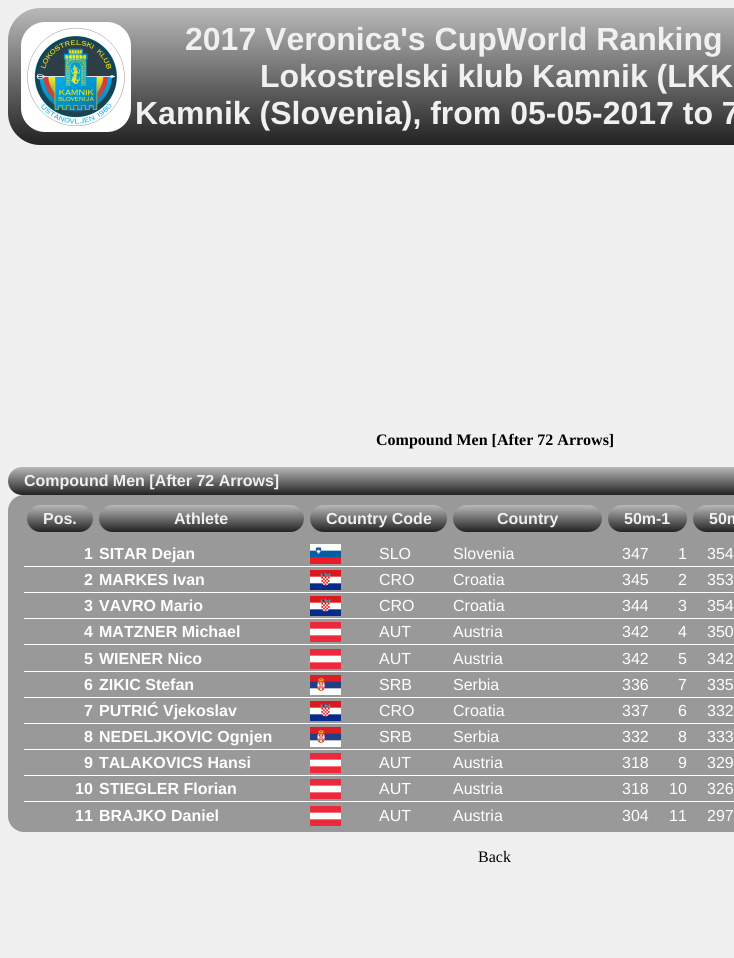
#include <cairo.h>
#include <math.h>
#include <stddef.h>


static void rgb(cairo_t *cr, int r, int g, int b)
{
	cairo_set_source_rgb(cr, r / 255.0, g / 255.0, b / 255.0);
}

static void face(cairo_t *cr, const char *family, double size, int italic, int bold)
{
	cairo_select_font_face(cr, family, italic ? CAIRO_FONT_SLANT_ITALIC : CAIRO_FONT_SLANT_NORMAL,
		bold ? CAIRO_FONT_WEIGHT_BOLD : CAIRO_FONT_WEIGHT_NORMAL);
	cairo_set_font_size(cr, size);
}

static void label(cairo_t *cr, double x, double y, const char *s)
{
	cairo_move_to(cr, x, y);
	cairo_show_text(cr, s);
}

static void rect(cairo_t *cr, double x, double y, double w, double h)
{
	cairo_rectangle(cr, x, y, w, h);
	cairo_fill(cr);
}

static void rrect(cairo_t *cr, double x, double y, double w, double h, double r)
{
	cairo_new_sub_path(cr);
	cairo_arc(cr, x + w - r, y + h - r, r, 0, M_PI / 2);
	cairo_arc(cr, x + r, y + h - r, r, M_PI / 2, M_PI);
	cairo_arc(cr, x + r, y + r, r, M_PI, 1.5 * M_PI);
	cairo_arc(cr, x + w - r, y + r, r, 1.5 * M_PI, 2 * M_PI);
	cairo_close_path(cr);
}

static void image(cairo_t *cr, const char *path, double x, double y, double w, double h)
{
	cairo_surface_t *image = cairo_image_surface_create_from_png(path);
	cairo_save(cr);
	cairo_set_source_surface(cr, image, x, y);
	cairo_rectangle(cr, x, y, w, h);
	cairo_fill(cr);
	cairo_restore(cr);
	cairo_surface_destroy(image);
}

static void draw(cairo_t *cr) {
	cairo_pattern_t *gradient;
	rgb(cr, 240, 240, 240);
	cairo_paint(cr);
	gradient = cairo_pattern_create_linear(8, 8, 8, 145);
	cairo_pattern_add_color_stop_rgba(gradient, 0, 0.725, 0.725, 0.725, 1);
	cairo_pattern_add_color_stop_rgba(gradient, 1, 0.133, 0.133, 0.133, 1);
	cairo_set_source(cr, gradient);
	cairo_pattern_destroy(gradient);
	rrect(cr, 8, 8, 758, 137, 32);
	cairo_fill(cr);
	rgb(cr, 255, 255, 255);
	rrect(cr, 21, 22, 110, 110, 24);
	cairo_fill(cr);
	image(cr, "image0.png", 27, 28, 98, 98);
	face(cr, "Liberation Sans", 32, 0, 1);
	rgb(cr, 240, 240, 240);
	label(cr, 185, 50, "2017 Veronica's CupWorld Ranking");
	label(cr, 260, 87, "Lokostrelski klub Kamnik (LKK");
	label(cr, 135, 124, "Kamnik (Slovenia), from 05-05-2017 to 7");
	face(cr, "Liberation Serif", 16, 0, 1);
	rgb(cr, 0, 0, 0);
	label(cr, 376, 445, "Compound Men [After 72 Arrows]");
	gradient = cairo_pattern_create_linear(8, 467, 8, 495);
	cairo_pattern_add_color_stop_rgba(gradient, 0, 0.725, 0.725, 0.725, 1);
	cairo_pattern_add_color_stop_rgba(gradient, 1, 0.133, 0.133, 0.133, 1);
	cairo_set_source(cr, gradient);
	cairo_pattern_destroy(gradient);
	rrect(cr, 8, 467, 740, 28, 14);
	cairo_fill(cr);
	face(cr, "Liberation Sans", 16, 0, 1);
	rgb(cr, 240, 240, 240);
	label(cr, 24, 486, "Compound Men [After 72 Arrows]");
	rgb(cr, 153, 153, 153);
	rrect(cr, 8, 495, 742, 337, 16);
	cairo_fill(cr);
	gradient = cairo_pattern_create_linear(27, 505, 27, 532);
	cairo_pattern_add_color_stop_rgba(gradient, 0, 0.725, 0.725, 0.725, 1);
	cairo_pattern_add_color_stop_rgba(gradient, 1, 0.133, 0.133, 0.133, 1);
	cairo_set_source(cr, gradient);
	cairo_pattern_destroy(gradient);
	rrect(cr, 27, 505, 66, 27, 13.5);
	cairo_fill(cr);
	rgb(cr, 240, 240, 240);
	label(cr, 43, 524, "Pos.");
	gradient = cairo_pattern_create_linear(99, 505, 99, 532);
	cairo_pattern_add_color_stop_rgba(gradient, 0, 0.725, 0.725, 0.725, 1);
	cairo_pattern_add_color_stop_rgba(gradient, 1, 0.133, 0.133, 0.133, 1);
	cairo_set_source(cr, gradient);
	cairo_pattern_destroy(gradient);
	rrect(cr, 99, 505, 205, 27, 13.5);
	cairo_fill(cr);
	rgb(cr, 240, 240, 240);
	label(cr, 174, 524, "Athlete");
	gradient = cairo_pattern_create_linear(310, 505, 310, 532);
	cairo_pattern_add_color_stop_rgba(gradient, 0, 0.725, 0.725, 0.725, 1);
	cairo_pattern_add_color_stop_rgba(gradient, 1, 0.133, 0.133, 0.133, 1);
	cairo_set_source(cr, gradient);
	cairo_pattern_destroy(gradient);
	rrect(cr, 310, 505, 137, 27, 13.5);
	cairo_fill(cr);
	rgb(cr, 240, 240, 240);
	label(cr, 326, 524, "Country Code");
	gradient = cairo_pattern_create_linear(453, 505, 453, 532);
	cairo_pattern_add_color_stop_rgba(gradient, 0, 0.725, 0.725, 0.725, 1);
	cairo_pattern_add_color_stop_rgba(gradient, 1, 0.133, 0.133, 0.133, 1);
	cairo_set_source(cr, gradient);
	cairo_pattern_destroy(gradient);
	rrect(cr, 453, 505, 149, 27, 13.5);
	cairo_fill(cr);
	rgb(cr, 240, 240, 240);
	label(cr, 497, 524, "Country");
	gradient = cairo_pattern_create_linear(608, 505, 608, 532);
	cairo_pattern_add_color_stop_rgba(gradient, 0, 0.725, 0.725, 0.725, 1);
	cairo_pattern_add_color_stop_rgba(gradient, 1, 0.133, 0.133, 0.133, 1);
	cairo_set_source(cr, gradient);
	cairo_pattern_destroy(gradient);
	rrect(cr, 608, 505, 79, 27, 13.5);
	cairo_fill(cr);
	rgb(cr, 240, 240, 240);
	label(cr, 624, 524, "50m-1");
	gradient = cairo_pattern_create_linear(693, 505, 693, 532);
	cairo_pattern_add_color_stop_rgba(gradient, 0, 0.725, 0.725, 0.725, 1);
	cairo_pattern_add_color_stop_rgba(gradient, 1, 0.133, 0.133, 0.133, 1);
	cairo_set_source(cr, gradient);
	cairo_pattern_destroy(gradient);
	rrect(cr, 693, 505, 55, 27, 13.5);
	cairo_fill(cr);
	rgb(cr, 240, 240, 240);
	label(cr, 709, 524, "50m");
	rgb(cr, 255, 255, 255);
	label(cr, 84, 559, "1");
	label(cr, 99, 559, "SITAR Dejan");
	image(cr, "image1.png", 310, 544, 31, 20);
	face(cr, "Liberation Sans", 16, 0, 0);
	label(cr, 379, 559, "SLO");
	label(cr, 453, 559, "Slovenia");
	label(cr, 622, 559, "347");
	label(cr, 678, 559, "1");
	label(cr, 707, 559, "354");
	face(cr, "Liberation Sans", 16, 0, 1);
	label(cr, 84, 585, "2");
	label(cr, 99, 585, "MARKES Ivan");
	image(cr, "image2.png", 310, 570, 31, 20);
	face(cr, "Liberation Sans", 16, 0, 0);
	label(cr, 379, 585, "CRO");
	label(cr, 453, 585, "Croatia");
	label(cr, 622, 585, "345");
	label(cr, 678, 585, "2");
	rect(cr, 24, 566, 710, 1);
	label(cr, 707, 585, "353");
	face(cr, "Liberation Sans", 16, 0, 1);
	label(cr, 84, 611, "3");
	label(cr, 99, 611, "VAVRO Mario");
	image(cr, "image2.png", 310, 596, 31, 20);
	face(cr, "Liberation Sans", 16, 0, 0);
	label(cr, 379, 611, "CRO");
	label(cr, 453, 611, "Croatia");
	label(cr, 622, 611, "344");
	label(cr, 678, 611, "3");
	rect(cr, 24, 592, 710, 1);
	label(cr, 707, 611, "354");
	face(cr, "Liberation Sans", 16, 0, 1);
	label(cr, 84, 637, "4");
	label(cr, 99, 637, "MATZNER Michael");
	image(cr, "image3.png", 310, 622, 31, 20);
	face(cr, "Liberation Sans", 16, 0, 0);
	label(cr, 379, 637, "AUT");
	label(cr, 453, 637, "Austria");
	label(cr, 622, 637, "342");
	label(cr, 678, 637, "4");
	rect(cr, 24, 618, 710, 1);
	label(cr, 707, 637, "350");
	face(cr, "Liberation Sans", 16, 0, 1);
	label(cr, 84, 664, "5");
	label(cr, 99, 664, "WIENER Nico");
	image(cr, "image3.png", 310, 649, 31, 20);
	face(cr, "Liberation Sans", 16, 0, 0);
	label(cr, 379, 664, "AUT");
	label(cr, 453, 664, "Austria");
	label(cr, 622, 664, "342");
	label(cr, 678, 664, "5");
	rect(cr, 24, 644, 710, 1);
	label(cr, 707, 664, "342");
	face(cr, "Liberation Sans", 16, 0, 1);
	label(cr, 84, 690, "6");
	label(cr, 99, 690, "ZIKIC Stefan");
	image(cr, "image4.png", 310, 675, 31, 20);
	face(cr, "Liberation Sans", 16, 0, 0);
	label(cr, 379, 690, "SRB");
	label(cr, 453, 690, "Serbia");
	label(cr, 622, 690, "336");
	label(cr, 678, 690, "7");
	rect(cr, 24, 671, 710, 1);
	label(cr, 707, 690, "335");
	face(cr, "Liberation Sans", 16, 0, 1);
	label(cr, 84, 716, "7");
	label(cr, 99, 716, "PUTRIĆ Vjekoslav");
	image(cr, "image2.png", 310, 701, 31, 20);
	face(cr, "Liberation Sans", 16, 0, 0);
	label(cr, 379, 716, "CRO");
	label(cr, 453, 716, "Croatia");
	label(cr, 622, 716, "337");
	label(cr, 678, 716, "6");
	rect(cr, 24, 697, 710, 1);
	label(cr, 707, 716, "332");
	face(cr, "Liberation Sans", 16, 0, 1);
	label(cr, 84, 742, "8");
	label(cr, 99, 742, "NEDELJKOVIC Ognjen");
	image(cr, "image4.png", 310, 727, 31, 20);
	face(cr, "Liberation Sans", 16, 0, 0);
	label(cr, 379, 742, "SRB");
	label(cr, 453, 742, "Serbia");
	label(cr, 622, 742, "332");
	label(cr, 678, 742, "8");
	rect(cr, 24, 723, 710, 1);
	label(cr, 707, 742, "333");
	face(cr, "Liberation Sans", 16, 0, 1);
	label(cr, 84, 768, "9");
	label(cr, 99, 768, "TALAKOVICS Hansi");
	image(cr, "image3.png", 310, 753, 31, 20);
	face(cr, "Liberation Sans", 16, 0, 0);
	label(cr, 379, 768, "AUT");
	label(cr, 453, 768, "Austria");
	label(cr, 622, 768, "318");
	label(cr, 678, 768, "9");
	rect(cr, 24, 749, 710, 1);
	label(cr, 707, 768, "329");
	face(cr, "Liberation Sans", 16, 0, 1);
	label(cr, 75, 794, "10");
	label(cr, 99, 794, "STIEGLER Florian");
	image(cr, "image3.png", 310, 779, 31, 20);
	face(cr, "Liberation Sans", 16, 0, 0);
	label(cr, 379, 794, "AUT");
	label(cr, 453, 794, "Austria");
	label(cr, 622, 794, "318");
	label(cr, 669, 794, "10");
	rect(cr, 24, 775, 710, 1);
	label(cr, 707, 794, "326");
	face(cr, "Liberation Sans", 16, 0, 1);
	label(cr, 75, 821, "11");
	label(cr, 99, 821, "BRAJKO Daniel");
	image(cr, "image3.png", 310, 806, 31, 20);
	face(cr, "Liberation Sans", 16, 0, 0);
	label(cr, 379, 821, "AUT");
	label(cr, 453, 821, "Austria");
	label(cr, 622, 821, "304");
	label(cr, 669, 821, "11");
	rect(cr, 24, 801, 710, 1);
	label(cr, 707, 821, "297");
	face(cr, "Liberation Serif", 16, 0, 0);
	rgb(cr, 0, 0, 0);
	label(cr, 478, 862, "Back");
}

int main(void) {
	cairo_surface_t *surface = cairo_image_surface_create(CAIRO_FORMAT_RGB24, 734, 958);
	cairo_t *cr = cairo_create(surface);
	cairo_font_options_t *options = cairo_font_options_create();
	cairo_font_options_set_hint_metrics(options, CAIRO_HINT_METRICS_OFF);
	cairo_font_options_set_hint_style(options, CAIRO_HINT_STYLE_NONE);
	cairo_set_font_options(cr, options);
	cairo_set_miter_limit(cr, 4);
	draw(cr);
	cairo_surface_write_to_png(surface, "render.png");
	cairo_font_options_destroy(options);
	cairo_destroy(cr);
	cairo_surface_destroy(surface);
	return 0;
}
